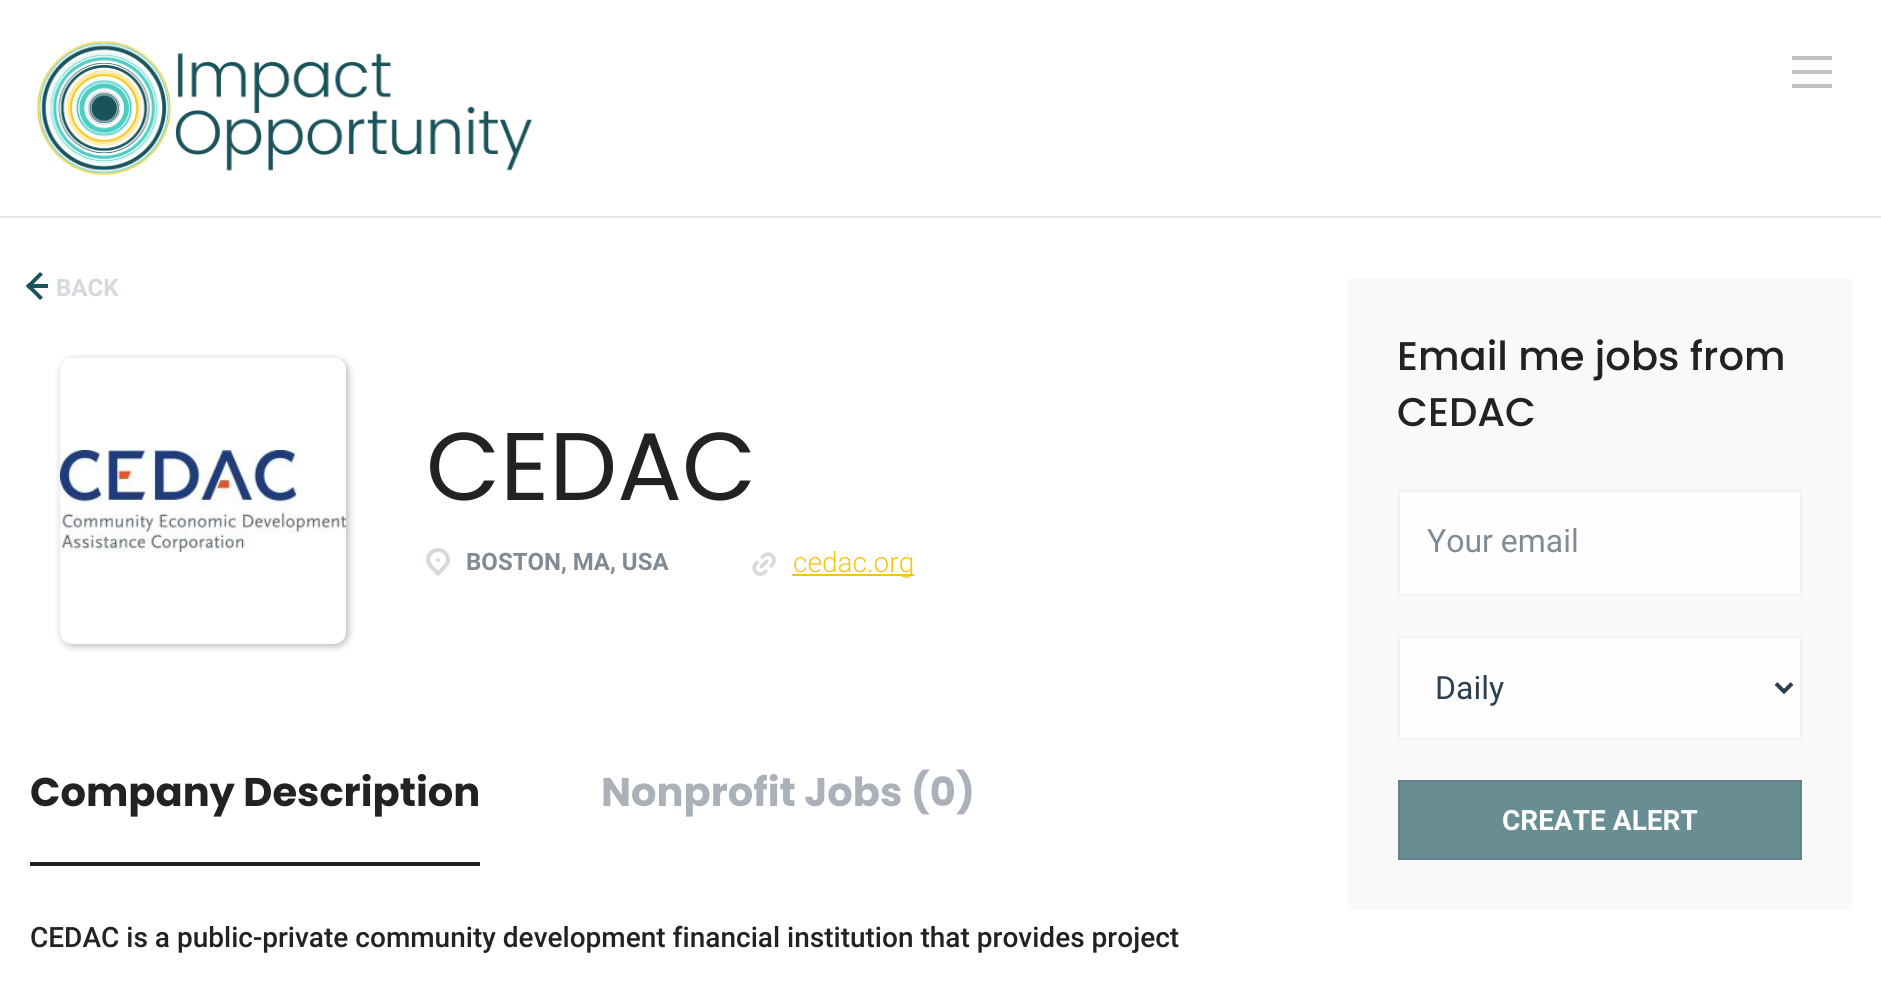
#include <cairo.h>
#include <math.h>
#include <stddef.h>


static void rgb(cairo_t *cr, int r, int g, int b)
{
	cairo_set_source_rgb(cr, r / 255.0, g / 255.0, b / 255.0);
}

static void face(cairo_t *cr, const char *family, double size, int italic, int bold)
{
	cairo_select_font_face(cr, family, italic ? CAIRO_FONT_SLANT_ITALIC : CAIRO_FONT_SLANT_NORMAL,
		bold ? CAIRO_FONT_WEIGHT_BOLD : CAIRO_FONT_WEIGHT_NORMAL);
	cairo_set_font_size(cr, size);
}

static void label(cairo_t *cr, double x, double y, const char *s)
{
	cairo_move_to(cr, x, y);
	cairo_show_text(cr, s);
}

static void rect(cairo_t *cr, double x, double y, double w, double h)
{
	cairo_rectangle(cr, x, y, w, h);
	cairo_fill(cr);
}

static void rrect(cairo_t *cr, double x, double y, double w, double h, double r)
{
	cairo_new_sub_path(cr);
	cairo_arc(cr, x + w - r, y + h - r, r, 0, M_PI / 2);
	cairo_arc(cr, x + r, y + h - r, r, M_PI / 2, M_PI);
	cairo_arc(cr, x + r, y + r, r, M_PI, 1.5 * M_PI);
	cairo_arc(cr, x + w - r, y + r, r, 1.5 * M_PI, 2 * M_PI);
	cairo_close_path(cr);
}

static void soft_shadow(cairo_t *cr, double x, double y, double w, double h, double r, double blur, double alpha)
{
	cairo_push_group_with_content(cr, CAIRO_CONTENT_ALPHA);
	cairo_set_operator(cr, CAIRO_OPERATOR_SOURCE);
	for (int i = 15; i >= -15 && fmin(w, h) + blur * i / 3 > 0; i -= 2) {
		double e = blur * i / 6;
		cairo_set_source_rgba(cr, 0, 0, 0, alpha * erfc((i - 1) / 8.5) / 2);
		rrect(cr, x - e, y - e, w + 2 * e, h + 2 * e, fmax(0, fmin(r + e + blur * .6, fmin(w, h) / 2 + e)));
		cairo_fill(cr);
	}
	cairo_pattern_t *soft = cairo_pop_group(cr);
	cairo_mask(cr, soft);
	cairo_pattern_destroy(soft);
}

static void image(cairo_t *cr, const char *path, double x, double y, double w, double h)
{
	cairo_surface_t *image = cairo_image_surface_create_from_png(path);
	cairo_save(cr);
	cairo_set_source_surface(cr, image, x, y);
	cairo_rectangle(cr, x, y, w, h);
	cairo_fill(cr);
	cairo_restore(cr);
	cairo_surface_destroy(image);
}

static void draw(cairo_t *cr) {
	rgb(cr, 255, 255, 255);
	cairo_paint(cr);
	rgb(cr, 228, 230, 232);
	rect(cr, 0, 216, 1881, 2);
	image(cr, "image0.png", 36, 41, 497, 134);
	rgb(cr, 194, 194, 194);
	rect(cr, 1792, 70, 40, 4);
	rect(cr, 1792, 56, 40, 4);
	rect(cr, 1792, 84, 40, 4);
	rgb(cr, 26, 83, 92);
	cairo_new_path(cr);
	cairo_move_to(cr, 28.5, 283);
	cairo_line_to(cr, 43, 297.5);
	cairo_line_to(cr, 40, 300);
	cairo_line_to(cr, 26, 286);
	cairo_close_path(cr);
	cairo_fill(cr);
	cairo_new_path(cr);
	cairo_move_to(cr, 40, 272);
	cairo_line_to(cr, 43, 274.5);
	cairo_line_to(cr, 28.5, 289);
	cairo_line_to(cr, 26, 286);
	cairo_close_path(cr);
	cairo_fill(cr);
	face(cr, "Roboto", 24, 0, 1);
	rgb(cr, 213, 216, 220);
	label(cr, 56, 296, "BACK");
	rgb(cr, 26, 83, 92);
	rect(cr, 30, 284, 18, 4);
	rgb(cr, 0, 0, 0);
	soft_shadow(cr, 62, 360, 286, 286, 12, 4, 0.3);
	rgb(cr, 255, 255, 255);
	rrect(cr, 60, 358, 286, 286, 12);
	cairo_fill(cr);
	image(cr, "image1.png", 60, 450, 286, 102);
	face(cr, "Poppins", 96, 0, 0);
	rgb(cr, 34, 34, 34);
	label(cr, 426, 500, "CEDAC");
	image(cr, "image2.png", 426, 548, 24, 28);
	face(cr, "Roboto", 24, 0, 1);
	rgb(cr, 129, 139, 150);
	label(cr, 466, 570, "BOSTON, MA, USA");
	image(cr, "image3.png", 752, 552, 24, 24);
	rgb(cr, 251, 196, 12);
	rect(cr, 792, 574, 122, 2);
	face(cr, "Roboto Light", 28, 0, 0);
	label(cr, 793, 572, "cedac.org");
	rgb(cr, 34, 34, 34);
	rect(cr, 30, 862, 450, 4);
	face(cr, "Poppins", 40, 0, 1);
	label(cr, 30, 806, "Company Description");
	rgb(cr, 171, 177, 185);
	label(cr, 601, 806, "Nonprofit Jobs (0)");
	face(cr, "Roboto Medium", 28, 0, 0);
	rgb(cr, 34, 34, 34);
	label(cr, 30, 947, "CEDAC is a public-private community development financial institution that provides project");
	rgb(cr, 248, 249, 249);
	rect(cr, 1348, 278, 504, 632);
	face(cr, "Poppins Medium", 40, 0, 0);
	rgb(cr, 34, 34, 34);
	label(cr, 1397, 370, "Email me jobs from");
	label(cr, 1397, 426, "CEDAC");
	rgb(cr, 254, 254, 254);
	cairo_rectangle(cr, 1399, 491, 402, 104);
	cairo_fill_preserve(cr);
	rgb(cr, 242, 242, 242);
	cairo_stroke(cr);
	face(cr, "Roboto", 32, 0, 0);
	rgb(cr, 129, 139, 150);
	label(cr, 1427, 552, "Your email");
	rgb(cr, 254, 254, 254);
	cairo_rectangle(cr, 1399, 637, 402, 102);
	cairo_fill_preserve(cr);
	rgb(cr, 242, 242, 242);
	cairo_stroke(cr);
	cairo_new_path(cr);
	cairo_move_to(cr, 1776, 683.5);
	cairo_line_to(cr, 1784, 691.5);
	cairo_line_to(cr, 1792, 683.5);
	rgb(cr, 45, 62, 80);
	cairo_set_line_width(cr, 4);
	cairo_stroke(cr);
	label(cr, 1435, 699, "Daily");
	rgb(cr, 104, 141, 147);
	cairo_rectangle(cr, 1399, 781, 402, 78);
	cairo_fill_preserve(cr);
	rgb(cr, 100, 129, 134);
	cairo_set_line_width(cr, 2);
	cairo_stroke(cr);
	face(cr, "Roboto", 28, 0, 1);
	rgb(cr, 253, 253, 253);
	label(cr, 1502, 830, "CREATE ALERT");
}

int main(void) {
	cairo_surface_t *surface = cairo_image_surface_create(CAIRO_FORMAT_RGB24, 1881, 983);
	cairo_t *cr = cairo_create(surface);
	cairo_font_options_t *options = cairo_font_options_create();
	cairo_font_options_set_hint_metrics(options, CAIRO_HINT_METRICS_OFF);
	cairo_font_options_set_hint_style(options, CAIRO_HINT_STYLE_NONE);
	cairo_set_font_options(cr, options);
	cairo_set_miter_limit(cr, 4);
	draw(cr);
	cairo_surface_write_to_png(surface, "render.png");
	cairo_font_options_destroy(options);
	cairo_destroy(cr);
	cairo_surface_destroy(surface);
	return 0;
}
